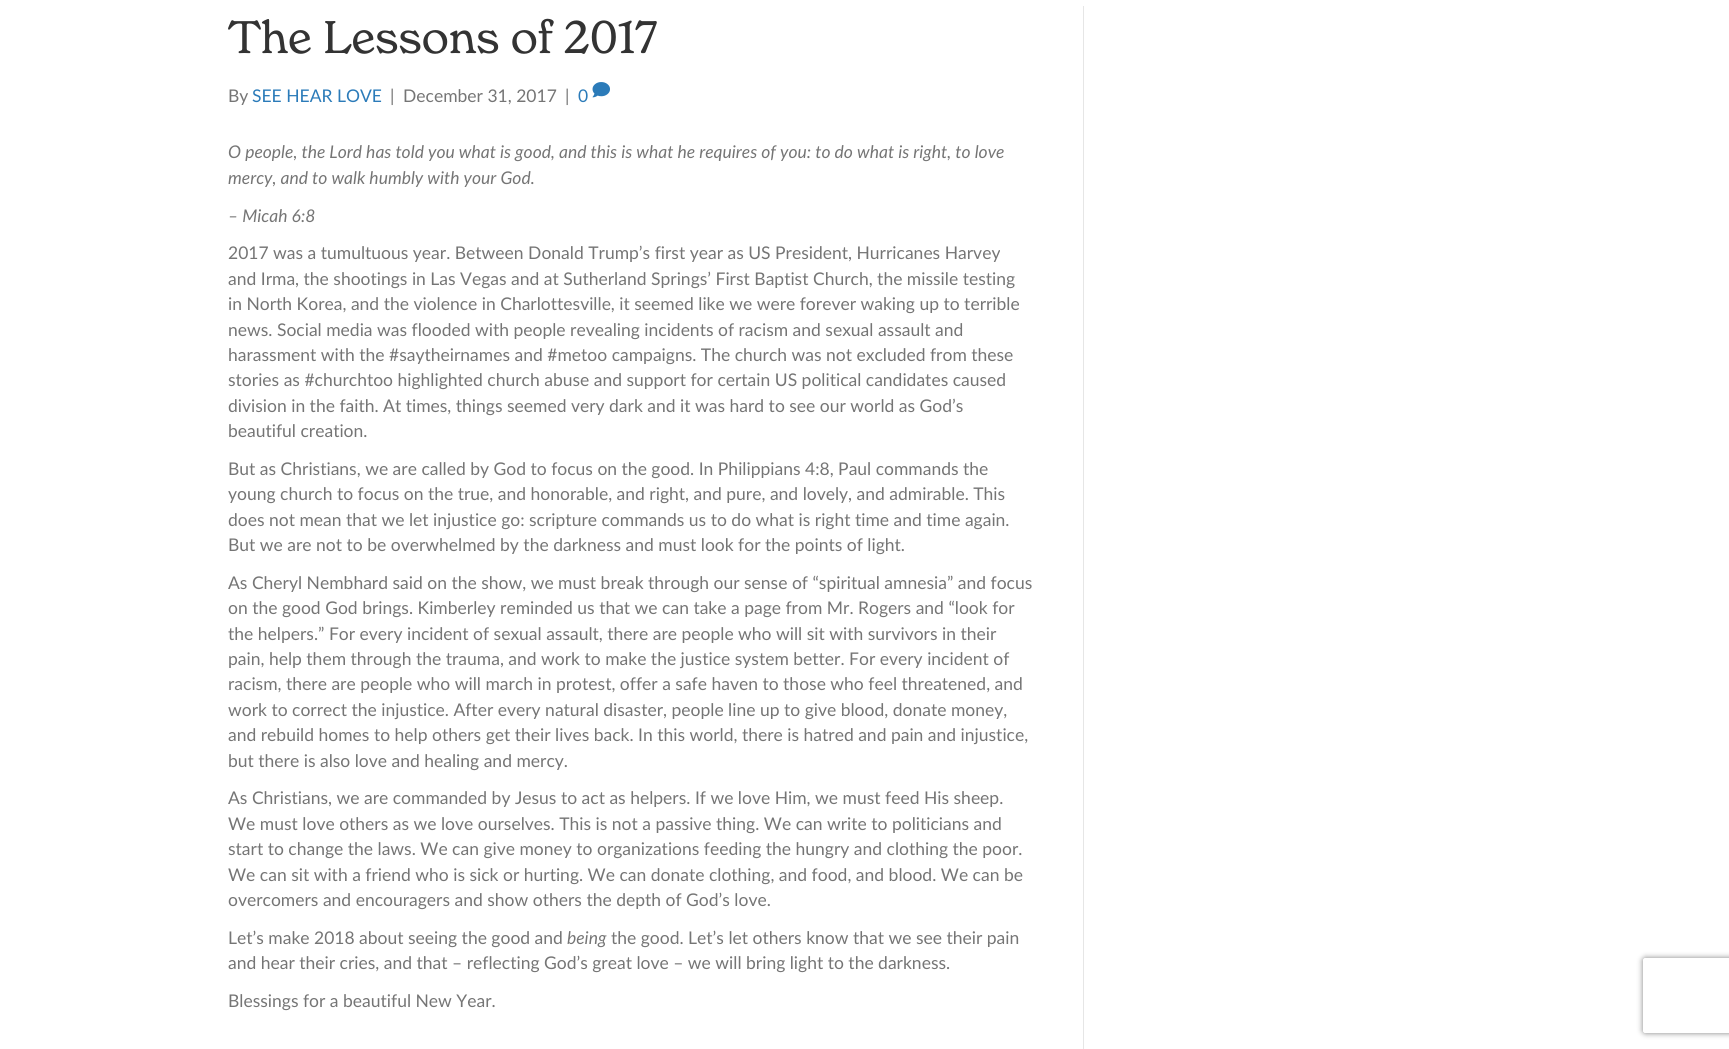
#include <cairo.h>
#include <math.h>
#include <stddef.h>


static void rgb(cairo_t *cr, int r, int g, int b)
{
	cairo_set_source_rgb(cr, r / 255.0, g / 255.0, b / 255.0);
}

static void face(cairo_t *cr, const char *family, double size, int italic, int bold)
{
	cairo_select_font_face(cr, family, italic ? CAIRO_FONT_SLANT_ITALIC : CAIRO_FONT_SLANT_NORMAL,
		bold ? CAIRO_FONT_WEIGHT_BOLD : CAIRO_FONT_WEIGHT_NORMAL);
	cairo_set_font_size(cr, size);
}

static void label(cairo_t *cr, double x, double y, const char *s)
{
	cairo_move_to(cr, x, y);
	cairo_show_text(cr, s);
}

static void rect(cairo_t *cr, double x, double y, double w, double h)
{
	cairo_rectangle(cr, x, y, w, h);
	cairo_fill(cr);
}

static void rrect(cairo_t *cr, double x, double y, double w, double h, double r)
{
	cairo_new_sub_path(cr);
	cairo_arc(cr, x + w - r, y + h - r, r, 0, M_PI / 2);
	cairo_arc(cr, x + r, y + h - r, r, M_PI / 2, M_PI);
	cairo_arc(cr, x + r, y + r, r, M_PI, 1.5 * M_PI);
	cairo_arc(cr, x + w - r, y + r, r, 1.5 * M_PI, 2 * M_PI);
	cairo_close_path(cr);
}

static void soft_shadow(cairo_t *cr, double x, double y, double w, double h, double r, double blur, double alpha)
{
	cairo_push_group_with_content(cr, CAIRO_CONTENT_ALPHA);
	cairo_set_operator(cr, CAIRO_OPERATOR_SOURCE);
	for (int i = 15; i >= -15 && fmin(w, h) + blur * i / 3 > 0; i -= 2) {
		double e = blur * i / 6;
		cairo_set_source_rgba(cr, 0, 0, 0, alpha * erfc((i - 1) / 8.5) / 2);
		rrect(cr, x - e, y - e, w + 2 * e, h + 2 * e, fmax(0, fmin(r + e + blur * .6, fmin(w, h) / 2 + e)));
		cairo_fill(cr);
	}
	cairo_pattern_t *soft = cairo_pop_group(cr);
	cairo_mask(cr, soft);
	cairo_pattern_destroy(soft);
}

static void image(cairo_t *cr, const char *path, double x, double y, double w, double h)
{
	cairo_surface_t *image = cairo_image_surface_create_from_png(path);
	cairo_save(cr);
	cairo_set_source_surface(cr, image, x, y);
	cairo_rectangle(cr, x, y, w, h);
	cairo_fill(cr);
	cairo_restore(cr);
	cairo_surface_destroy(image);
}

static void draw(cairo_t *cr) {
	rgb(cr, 255, 255, 255);
	cairo_paint(cr);
	rgb(cr, 230, 230, 230);
	rect(cr, 1083, 6, 1, 1043);
	face(cr, "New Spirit", 45, 0, 0);
	rgb(cr, 51, 51, 51);
	label(cr, 228, 53, "The Lessons of 2017");
	face(cr, "Lato", 17.5, 0, 0);
	rgb(cr, 117, 117, 117);
	label(cr, 228, 102, "By");
	rgb(cr, 43, 123, 185);
	label(cr, 252, 102, "SEE HEAR LOVE");
	rgb(cr, 117, 117, 117);
	label(cr, 390, 102, "|");
	label(cr, 403, 102, "December 31, 2017");
	label(cr, 565, 102, "|");
	rgb(cr, 43, 123, 185);
	label(cr, 578, 102, "0");
	image(cr, "image0.png", 592, 82, 18, 16);
	face(cr, "Lato", 17.5, 1, 0);
	rgb(cr, 117, 117, 117);
	label(cr, 228, 158, "O people, the Lord has told you what is good, and this is what he requires of you: to do what is right, to love");
	label(cr, 228, 184, "mercy, and to walk humbly with your God.");
	label(cr, 228, 222, "– Micah 6:8");
	face(cr, "Lato", 17.5, 0, 0);
	label(cr, 228, 259, "2017 was a tumultuous year. Between Donald Trump’s first year as US President, Hurricanes Harvey");
	label(cr, 228, 285, "and Irma, the shootings in Las Vegas and at Sutherland Springs’ First Baptist Church, the missile testing");
	label(cr, 228, 310, "in North Korea, and the violence in Charlottesville, it seemed like we were forever waking up to terrible");
	label(cr, 228, 336, "news. Social media was flooded with people revealing incidents of racism and sexual assault and");
	label(cr, 228, 361, "harassment with the #saytheirnames and #metoo campaigns. The church was not excluded from these");
	label(cr, 228, 386, "stories as #churchtoo highlighted church abuse and support for certain US political candidates caused");
	label(cr, 228, 412, "division in the faith. At times, things seemed very dark and it was hard to see our world as God’s");
	label(cr, 228, 437, "beautiful creation.");
	label(cr, 228, 475, "But as Christians, we are called by God to focus on the good. In Philippians 4:8, Paul commands the");
	label(cr, 228, 500, "young church to focus on the true, and honorable, and right, and pure, and lovely, and admirable. This");
	label(cr, 228, 526, "does not mean that we let injustice go: scripture commands us to do what is right time and time again.");
	label(cr, 228, 551, "But we are not to be overwhelmed by the darkness and must look for the points of light.");
	label(cr, 228, 589, "As Cheryl Nembhard said on the show, we must break through our sense of “spiritual amnesia” and focus");
	label(cr, 228, 614, "on the good God brings. Kimberley reminded us that we can take a page from Mr. Rogers and “look for");
	label(cr, 228, 640, "the helpers.” For every incident of sexual assault, there are people who will sit with survivors in their");
	label(cr, 228, 665, "pain, help them through the trauma, and work to make the justice system better. For every incident of");
	label(cr, 228, 690, "racism, there are people who will march in protest, offer a safe haven to those who feel threatened, and");
	label(cr, 228, 716, "work to correct the injustice. After every natural disaster, people line up to give blood, donate money,");
	label(cr, 228, 741, "and rebuild homes to help others get their lives back. In this world, there is hatred and pain and injustice,");
	label(cr, 228, 767, "but there is also love and healing and mercy.");
	label(cr, 228, 804, "As Christians, we are commanded by Jesus to act as helpers. If we love Him, we must feed His sheep.");
	label(cr, 228, 830, "We must love others as we love ourselves. This is not a passive thing. We can write to politicians and");
	label(cr, 228, 855, "start to change the laws. We can give money to organizations feeding the hungry and clothing the poor.");
	label(cr, 228, 881, "We can sit with a friend who is sick or hurting. We can donate clothing, and food, and blood. We can be");
	label(cr, 228, 906, "overcomers and encouragers and show others the depth of God’s love.");
	label(cr, 228, 944, "Let’s make 2018 about seeing the good and");
	face(cr, "Lato", 17.5, 1, 0);
	label(cr, 567, 944, "being");
	face(cr, "Lato", 17.5, 0, 0);
	label(cr, 611, 944, "the good. Let’s let others know that we see their pain");
	label(cr, 228, 969, "and hear their cries, and that – reflecting God’s great love – we will bring light to the darkness.");
	label(cr, 228, 1007, "Blessings for a beautiful New Year.");
	cairo_save(cr);
	cairo_set_fill_rule(cr, CAIRO_FILL_RULE_EVEN_ODD);
	cairo_new_path(cr);
	cairo_move_to(cr, 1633, 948);
	cairo_line_to(cr, 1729, 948);
	cairo_line_to(cr, 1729, 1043);
	cairo_line_to(cr, 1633, 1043);
	cairo_close_path(cr);
	cairo_move_to(cr, 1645.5, 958);
	cairo_line_to(cr, 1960.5, 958);
	cairo_curve_to(cr, 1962, 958, 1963, 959, 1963, 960.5);
	cairo_line_to(cr, 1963, 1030.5);
	cairo_curve_to(cr, 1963, 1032, 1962, 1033, 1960.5, 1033);
	cairo_line_to(cr, 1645.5, 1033);
	cairo_curve_to(cr, 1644, 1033, 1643, 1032, 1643, 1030.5);
	cairo_line_to(cr, 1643, 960.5);
	cairo_curve_to(cr, 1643, 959, 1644, 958, 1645.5, 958);
	cairo_close_path(cr);
	cairo_clip(cr);
	rgb(cr, 128, 128, 128);
	soft_shadow(cr, 1643, 958, 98, 75, 2.5, 3, 1);
	cairo_restore(cr);
}

int main(void) {
	cairo_surface_t *surface = cairo_image_surface_create(CAIRO_FORMAT_RGB24, 1729, 1049);
	cairo_t *cr = cairo_create(surface);
	cairo_font_options_t *options = cairo_font_options_create();
	cairo_font_options_set_hint_metrics(options, CAIRO_HINT_METRICS_OFF);
	cairo_font_options_set_hint_style(options, CAIRO_HINT_STYLE_NONE);
	cairo_set_font_options(cr, options);
	cairo_set_miter_limit(cr, 4);
	draw(cr);
	cairo_surface_write_to_png(surface, "render.png");
	cairo_font_options_destroy(options);
	cairo_destroy(cr);
	cairo_surface_destroy(surface);
	return 0;
}
